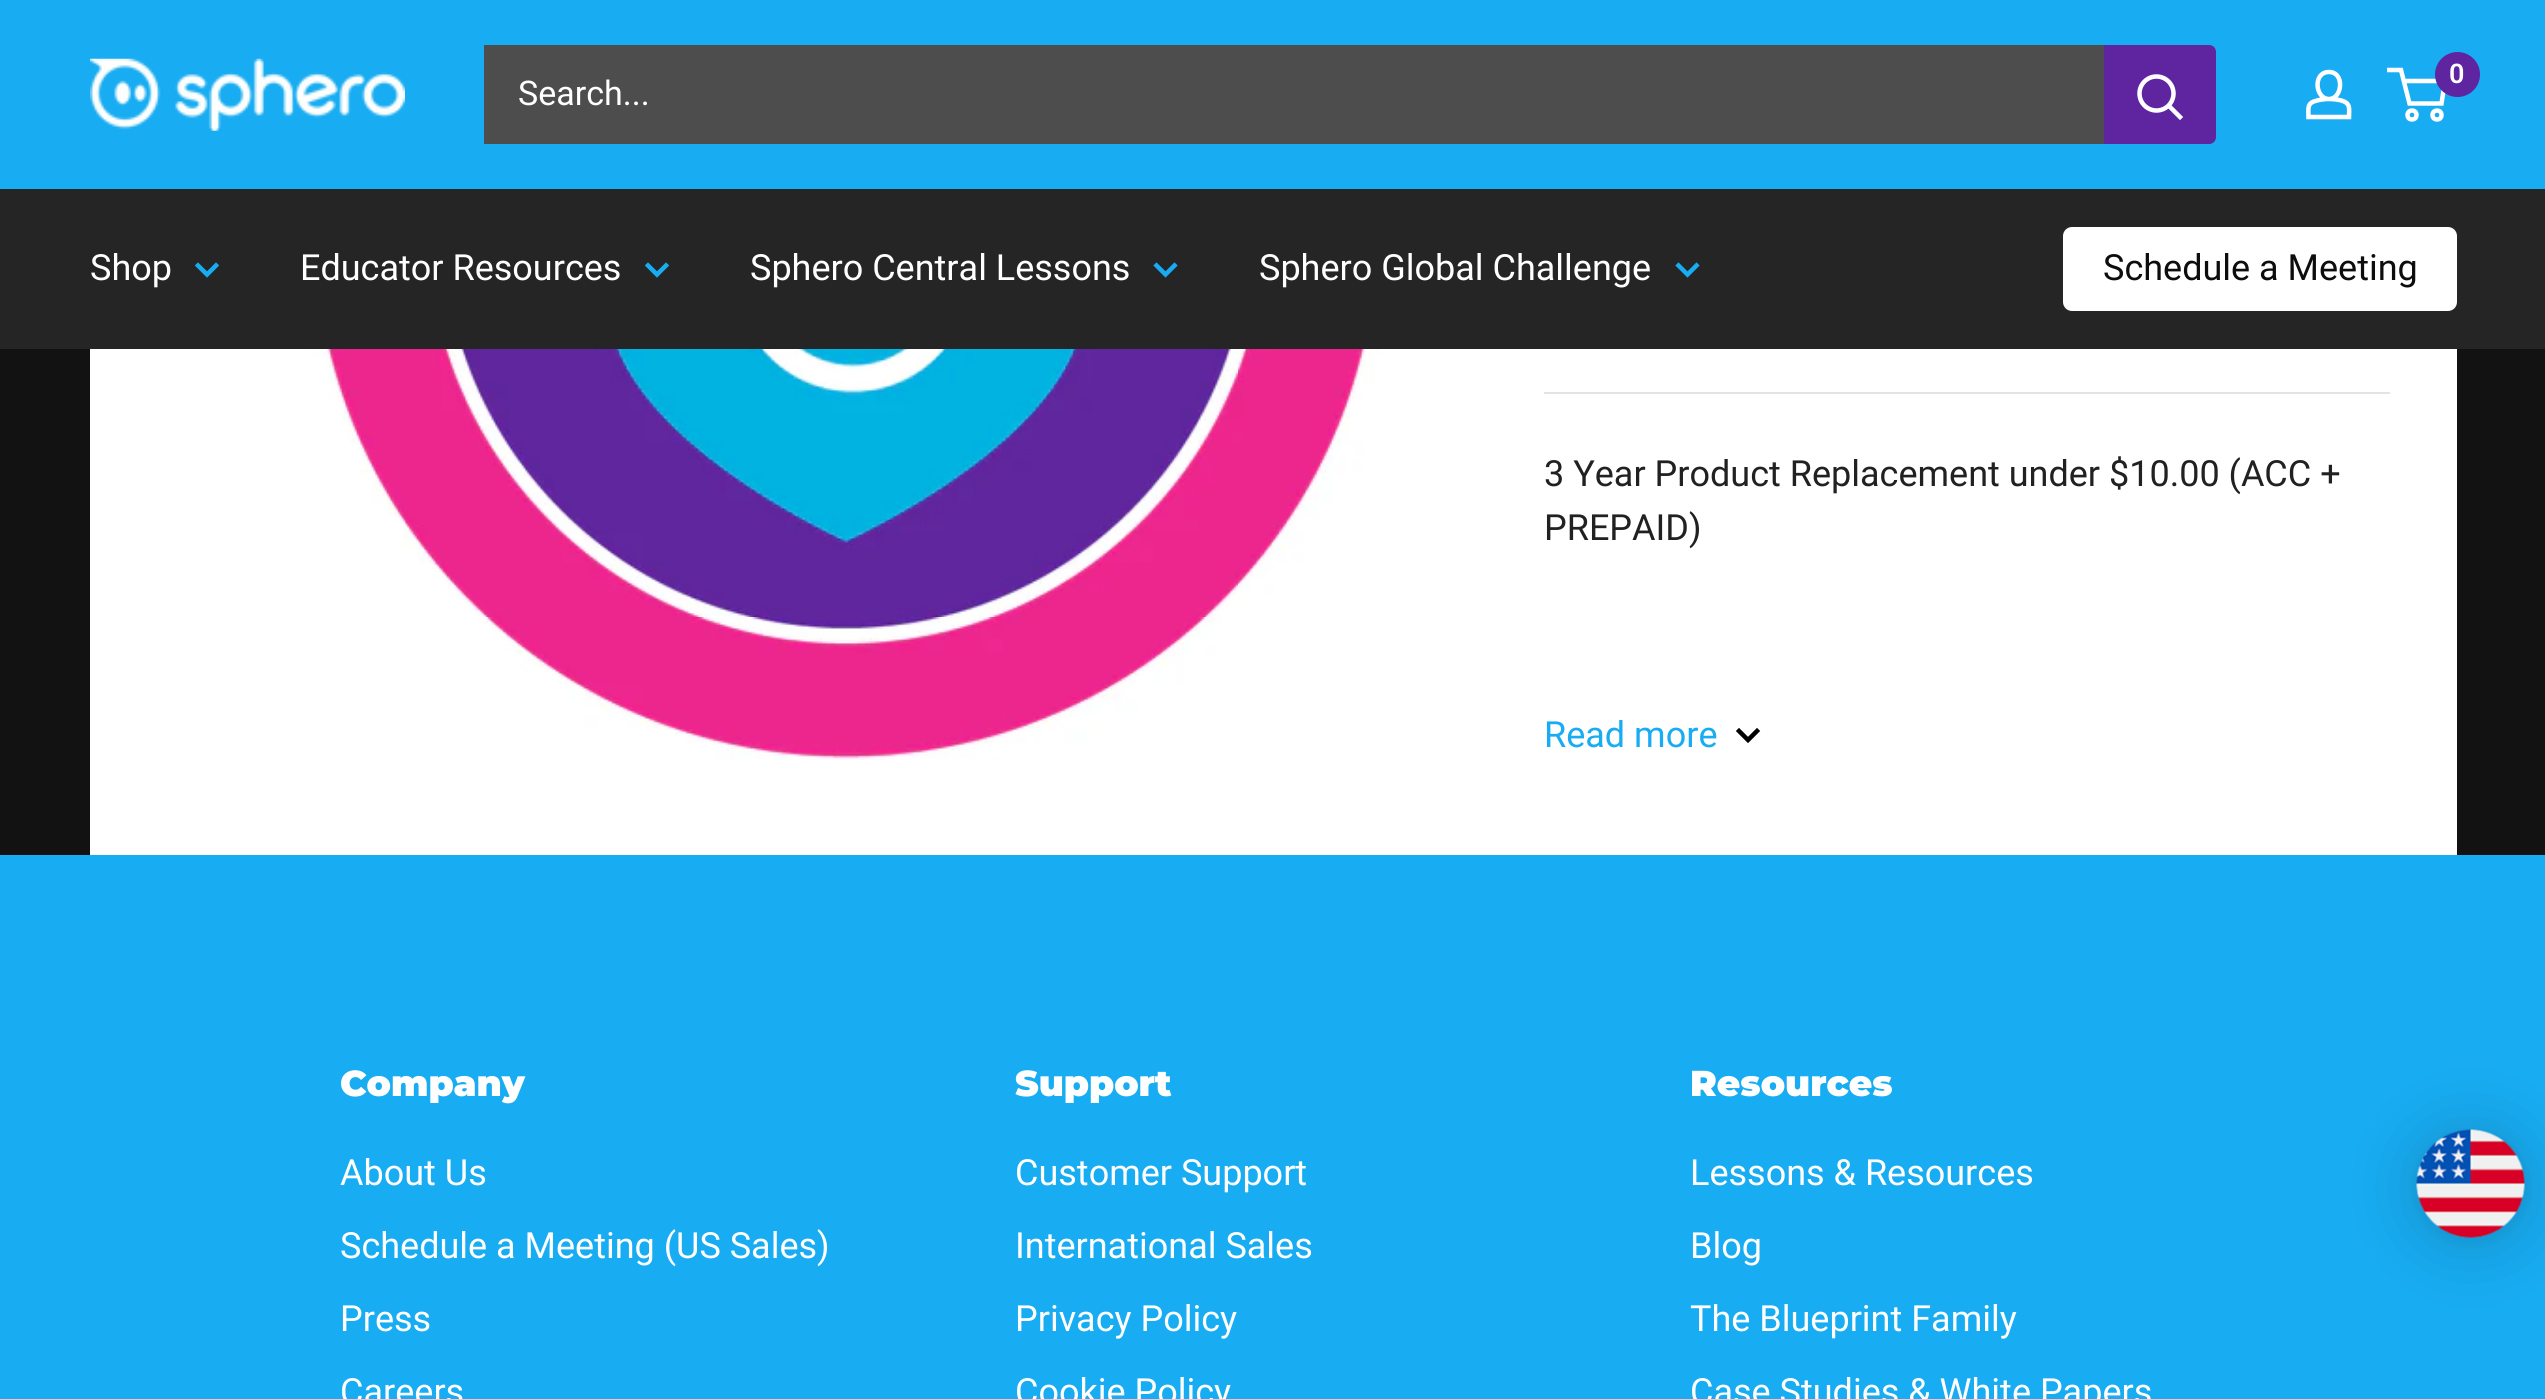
#include <cairo.h>
#include <math.h>
#include <stddef.h>


static void rgb(cairo_t *cr, int r, int g, int b)
{
	cairo_set_source_rgb(cr, r / 255.0, g / 255.0, b / 255.0);
}

static void face(cairo_t *cr, const char *family, double size, int italic, int bold)
{
	cairo_select_font_face(cr, family, italic ? CAIRO_FONT_SLANT_ITALIC : CAIRO_FONT_SLANT_NORMAL,
		bold ? CAIRO_FONT_WEIGHT_BOLD : CAIRO_FONT_WEIGHT_NORMAL);
	cairo_set_font_size(cr, size);
}

static void label(cairo_t *cr, double x, double y, const char *s)
{
	cairo_move_to(cr, x, y);
	cairo_show_text(cr, s);
}

static void rect(cairo_t *cr, double x, double y, double w, double h)
{
	cairo_rectangle(cr, x, y, w, h);
	cairo_fill(cr);
}

static void rrect(cairo_t *cr, double x, double y, double w, double h, double r)
{
	cairo_new_sub_path(cr);
	cairo_arc(cr, x + w - r, y + h - r, r, 0, M_PI / 2);
	cairo_arc(cr, x + r, y + h - r, r, M_PI / 2, M_PI);
	cairo_arc(cr, x + r, y + r, r, M_PI, 1.5 * M_PI);
	cairo_arc(cr, x + w - r, y + r, r, 1.5 * M_PI, 2 * M_PI);
	cairo_close_path(cr);
}

static void soft_shadow(cairo_t *cr, double x, double y, double w, double h, double r, double blur, double alpha)
{
	cairo_push_group_with_content(cr, CAIRO_CONTENT_ALPHA);
	cairo_set_operator(cr, CAIRO_OPERATOR_SOURCE);
	for (int i = 15; i >= -15 && fmin(w, h) + blur * i / 3 > 0; i -= 2) {
		double e = blur * i / 6;
		cairo_set_source_rgba(cr, 0, 0, 0, alpha * erfc((i - 1) / 8.5) / 2);
		rrect(cr, x - e, y - e, w + 2 * e, h + 2 * e, fmax(0, fmin(r + e + blur * .6, fmin(w, h) / 2 + e)));
		cairo_fill(cr);
	}
	cairo_pattern_t *soft = cairo_pop_group(cr);
	cairo_mask(cr, soft);
	cairo_pattern_destroy(soft);
}

static void image(cairo_t *cr, const char *path, double x, double y, double w, double h)
{
	cairo_surface_t *image = cairo_image_surface_create_from_png(path);
	cairo_save(cr);
	cairo_set_source_surface(cr, image, x, y);
	cairo_rectangle(cr, x, y, w, h);
	cairo_fill(cr);
	cairo_restore(cr);
	cairo_surface_destroy(image);
}

static void draw(cairo_t *cr) {
	rgb(cr, 18, 18, 18);
	cairo_paint(cr);
	rgb(cr, 24, 172, 242);
	rect(cr, 0, 0, 2545, 189);
	image(cr, "image0.png", 90, 58, 315, 73);
	cairo_new_path(cr);
	cairo_move_to(cr, 2329, 99);
	cairo_curve_to(cr, 2333, 99, 2337, 99.5, 2341.5, 100.5);
	cairo_curve_to(cr, 2351, 103.5, 2349, 108.5, 2349, 117);
	cairo_line_to(cr, 2308.5, 117);
	cairo_curve_to(cr, 2308.5, 108, 2306.5, 103, 2317, 100.5);
	cairo_curve_to(cr, 2321, 99.5, 2325, 99, 2329, 99);
	cairo_close_path(cr);
	cairo_move_to(cr, 2329, 99);
	cairo_curve_to(cr, 2315, 99, 2312.5, 72, 2329, 72);
	cairo_curve_to(cr, 2345, 72, 2342.5, 99, 2329, 99);
	cairo_close_path(cr);
	rgb(cr, 255, 255, 255);
	cairo_set_line_width(cr, 4.5);
	cairo_stroke(cr);
	cairo_arc(cr, 2412, 115, 4.5, 0, 2 * M_PI);
	cairo_stroke(cr);
	cairo_arc(cr, 2437, 115, 4.5, 0, 2 * M_PI);
	cairo_stroke(cr);
	cairo_new_path(cr);
	cairo_move_to(cr, 2403.5, 81);
	cairo_line_to(cr, 2445, 81);
	cairo_line_to(cr, 2441.5, 103.5);
	cairo_line_to(cr, 2409.5, 103.5);
	cairo_line_to(cr, 2401, 70);
	cairo_line_to(cr, 2387, 70);
	cairo_stroke(cr);
	rgb(cr, 95, 36, 159);
	cairo_arc(cr, 2457.5, 74.5, 22.5, 0, 2 * M_PI);
	cairo_fill(cr);
	face(cr, "Roboto SemiBold", 27, 0, 0);
	rgb(cr, 255, 255, 255);
	label(cr, 2449, 83, "0");
	rgb(cr, 77, 77, 77);
	rect(cr, 484, 45, 1620, 99);
	face(cr, "Roboto", 34, 0, 0);
	rgb(cr, 255, 255, 255);
	label(cr, 518, 105, "Search...");
	rgb(cr, 95, 36, 159);
	cairo_new_path(cr);
	cairo_move_to(cr, 2104, 45);
	cairo_line_to(cr, 2209, 45);
	cairo_curve_to(cr, 2213, 45, 2216, 48, 2216, 52);
	cairo_line_to(cr, 2216, 137);
	cairo_curve_to(cr, 2216, 141, 2213, 144, 2209, 144);
	cairo_line_to(cr, 2104, 144);
	cairo_close_path(cr);
	cairo_fill(cr);
	cairo_new_path(cr);
	cairo_move_to(cr, 2180, 117);
	cairo_line_to(cr, 2169, 106);
	rgb(cr, 255, 255, 255);
	cairo_set_line_cap(cr, CAIRO_LINE_CAP_SQUARE);
	cairo_stroke(cr);
	cairo_arc(cr, 2156.5, 93.5, 17, 0, 2 * M_PI);
	cairo_set_line_cap(cr, CAIRO_LINE_CAP_BUTT);
	cairo_stroke(cr);
	rgb(cr, 37, 37, 37);
	rect(cr, 0, 189, 2545, 160);
	face(cr, "Roboto", 36, 0, 0);
	rgb(cr, 255, 255, 255);
	label(cr, 90, 280, "Shop");
	cairo_new_path(cr);
	cairo_move_to(cr, 216, 265.5);
	cairo_line_to(cr, 207, 274.5);
	cairo_line_to(cr, 198, 265.5);
	rgb(cr, 24, 172, 242);
	cairo_set_line_cap(cr, CAIRO_LINE_CAP_SQUARE);
	cairo_stroke(cr);
	rgb(cr, 255, 255, 255);
	label(cr, 300, 280, "Educator Resources");
	cairo_new_path(cr);
	cairo_move_to(cr, 666, 265.5);
	cairo_line_to(cr, 657, 274.5);
	cairo_line_to(cr, 648, 265.5);
	rgb(cr, 24, 172, 242);
	cairo_stroke(cr);
	rgb(cr, 255, 255, 255);
	label(cr, 750, 280, "Sphero Central Lessons");
	cairo_new_path(cr);
	cairo_move_to(cr, 1174.5, 265.5);
	cairo_line_to(cr, 1165.5, 274.5);
	cairo_line_to(cr, 1156.5, 265.5);
	rgb(cr, 24, 172, 242);
	cairo_stroke(cr);
	rgb(cr, 255, 255, 255);
	label(cr, 1259, 280, "Sphero Global Challenge");
	cairo_new_path(cr);
	cairo_move_to(cr, 1696.5, 265.5);
	cairo_line_to(cr, 1687.5, 274.5);
	cairo_line_to(cr, 1678.5, 265.5);
	rgb(cr, 24, 172, 242);
	cairo_stroke(cr);
	rgb(cr, 255, 255, 255);
	rrect(cr, 2063, 227, 394, 84, 9);
	cairo_fill(cr);
	rgb(cr, 13, 13, 13);
	label(cr, 2103, 280, "Schedule a Meeting");
	rgb(cr, 255, 255, 255);
	rect(cr, 90, 349, 2367, 506);
	image(cr, "image1.png", 311, 349, 1070, 411);
	rgb(cr, 225, 227, 228);
	rect(cr, 1544, 392, 846, 2);
	rgb(cr, 33, 33, 33);
	label(cr, 1544, 486, "3 Year Product Replacement under $10.00 (ACC +");
	label(cr, 1544, 540, "PREPAID)");
	rgb(cr, 24, 172, 242);
	label(cr, 1544, 747, "Read more");
	cairo_new_path(cr);
	cairo_move_to(cr, 1757, 731);
	cairo_line_to(cr, 1748, 740);
	cairo_line_to(cr, 1739, 731);
	rgb(cr, 0, 0, 0);
	cairo_stroke(cr);
	rgb(cr, 24, 172, 242);
	rect(cr, 0, 855, 2545, 544);
	face(cr, "Montserrat Black", 36, 0, 0);
	rgb(cr, 255, 255, 255);
	label(cr, 340, 1096, "Company");
	face(cr, "Roboto", 36, 0, 0);
	label(cr, 340, 1185, "About Us");
	label(cr, 340, 1258, "Schedule a Meeting (US Sales)");
	label(cr, 340, 1331, "Press");
	label(cr, 340, 1404, "Careers");
	face(cr, "Montserrat Black", 36, 0, 0);
	label(cr, 1015, 1096, "Support");
	face(cr, "Roboto", 36, 0, 0);
	label(cr, 1015, 1185, "Customer Support");
	label(cr, 1015, 1258, "International Sales");
	label(cr, 1015, 1331, "Privacy Policy");
	label(cr, 1015, 1404, "Cookie Policy");
	face(cr, "Montserrat Black", 36, 0, 0);
	label(cr, 1690, 1096, "Resources");
	face(cr, "Roboto", 36, 0, 0);
	label(cr, 1690, 1185, "Lessons & Resources");
	label(cr, 1690, 1258, "Blog");
	label(cr, 1690, 1331, "The Blueprint Family");
	label(cr, 1690, 1404, "Case Studies & White Papers");
	rgb(cr, 0, 0, 0);
	soft_shadow(cr, 2417, 1134, 108, 108, 54, 36, 0.16);
	soft_shadow(cr, 2417, 1132, 108, 108, 54, 7, 0.06);
	image(cr, "image2.png", 2416, 1129, 109, 109);
}

int main(void) {
	cairo_surface_t *surface = cairo_image_surface_create(CAIRO_FORMAT_RGB24, 2545, 1399);
	cairo_t *cr = cairo_create(surface);
	cairo_font_options_t *options = cairo_font_options_create();
	cairo_font_options_set_hint_metrics(options, CAIRO_HINT_METRICS_OFF);
	cairo_font_options_set_hint_style(options, CAIRO_HINT_STYLE_NONE);
	cairo_set_font_options(cr, options);
	cairo_set_miter_limit(cr, 4);
	draw(cr);
	cairo_surface_write_to_png(surface, "render.png");
	cairo_font_options_destroy(options);
	cairo_destroy(cr);
	cairo_surface_destroy(surface);
	return 0;
}
